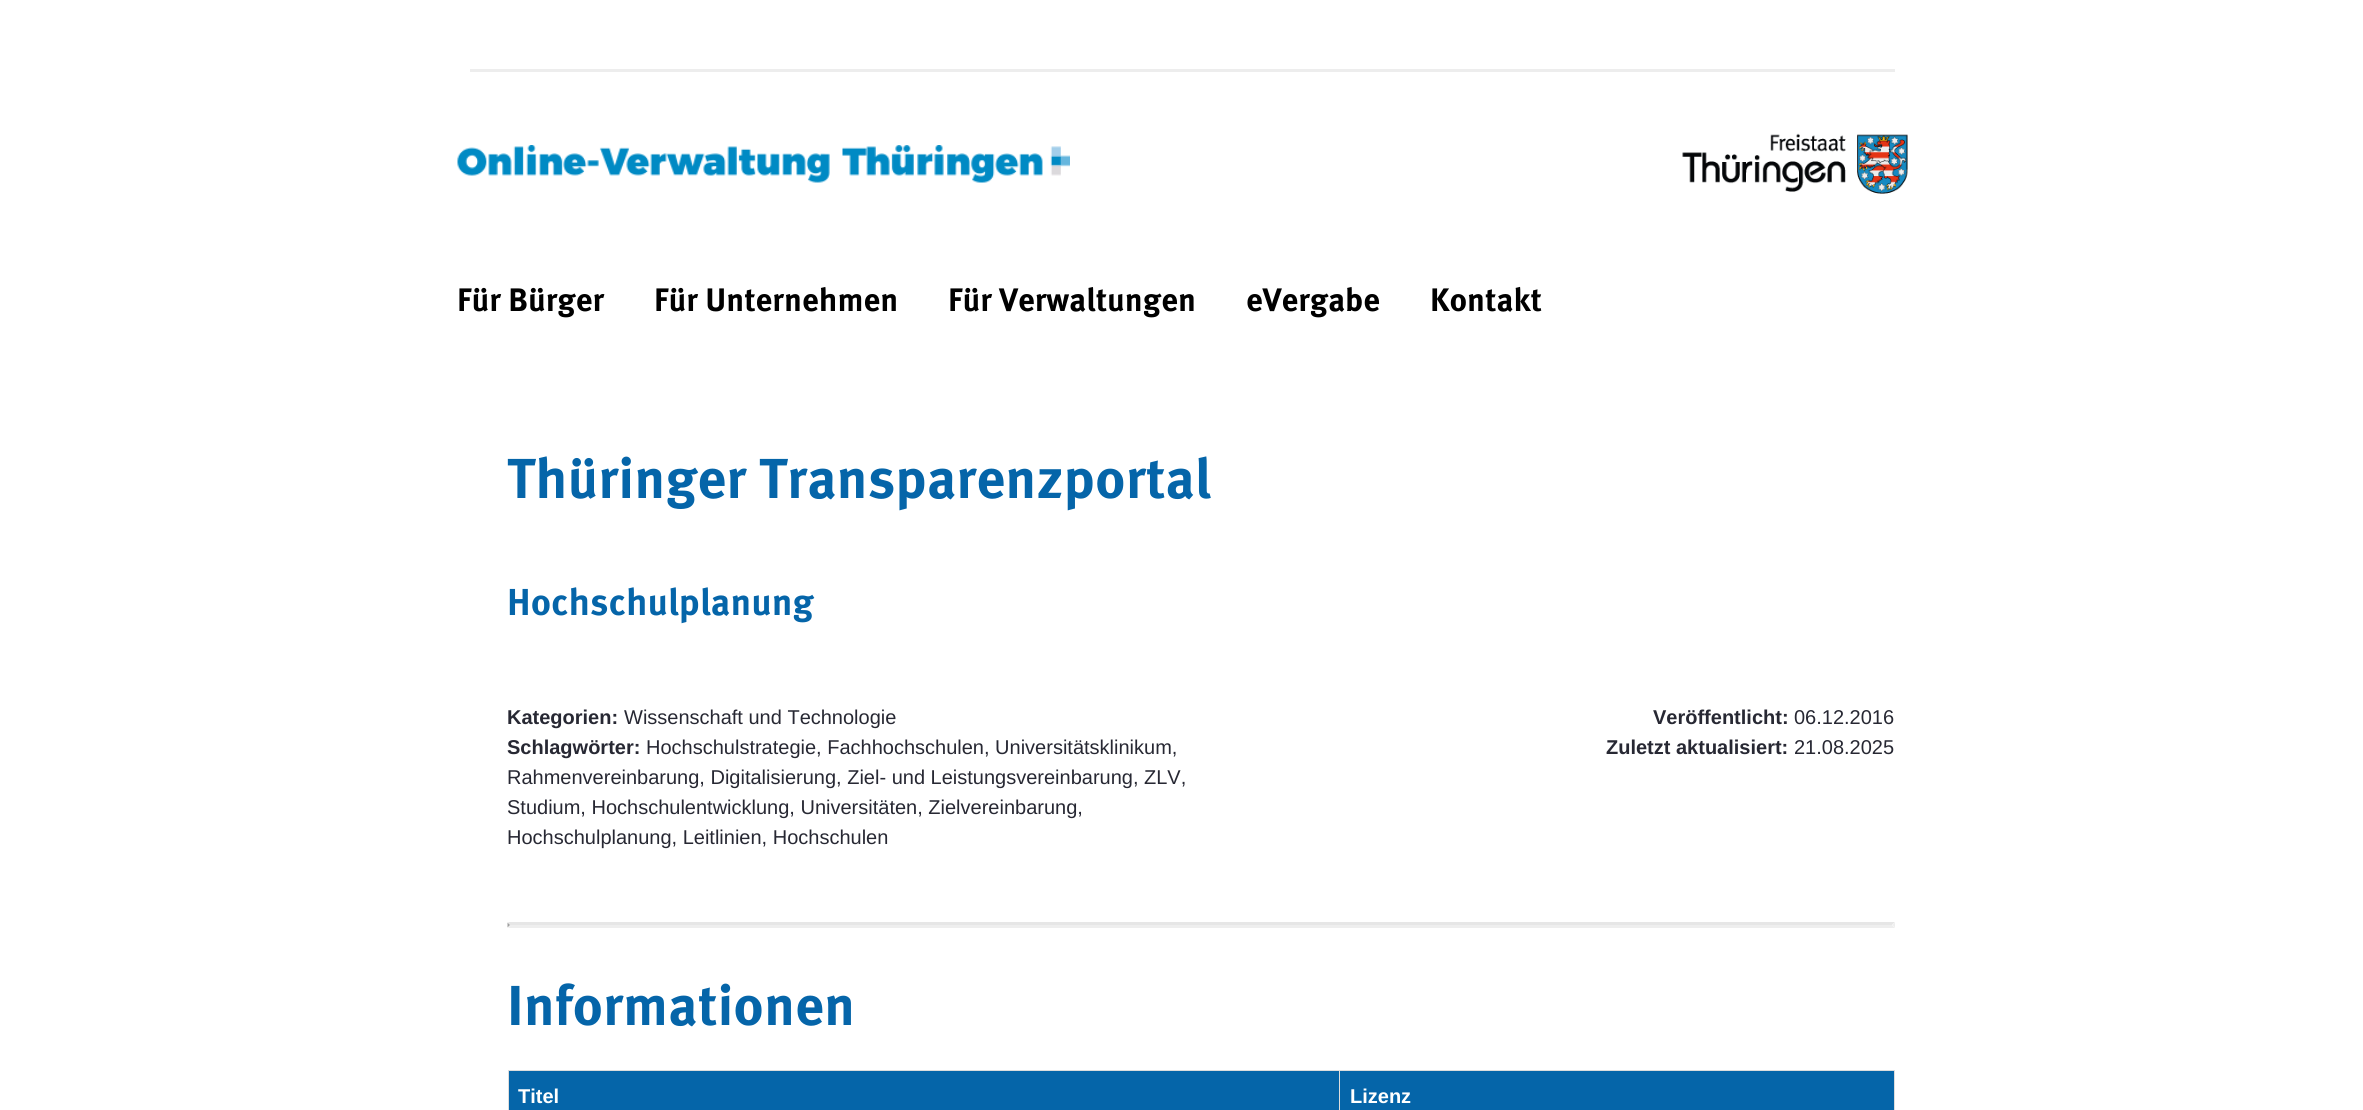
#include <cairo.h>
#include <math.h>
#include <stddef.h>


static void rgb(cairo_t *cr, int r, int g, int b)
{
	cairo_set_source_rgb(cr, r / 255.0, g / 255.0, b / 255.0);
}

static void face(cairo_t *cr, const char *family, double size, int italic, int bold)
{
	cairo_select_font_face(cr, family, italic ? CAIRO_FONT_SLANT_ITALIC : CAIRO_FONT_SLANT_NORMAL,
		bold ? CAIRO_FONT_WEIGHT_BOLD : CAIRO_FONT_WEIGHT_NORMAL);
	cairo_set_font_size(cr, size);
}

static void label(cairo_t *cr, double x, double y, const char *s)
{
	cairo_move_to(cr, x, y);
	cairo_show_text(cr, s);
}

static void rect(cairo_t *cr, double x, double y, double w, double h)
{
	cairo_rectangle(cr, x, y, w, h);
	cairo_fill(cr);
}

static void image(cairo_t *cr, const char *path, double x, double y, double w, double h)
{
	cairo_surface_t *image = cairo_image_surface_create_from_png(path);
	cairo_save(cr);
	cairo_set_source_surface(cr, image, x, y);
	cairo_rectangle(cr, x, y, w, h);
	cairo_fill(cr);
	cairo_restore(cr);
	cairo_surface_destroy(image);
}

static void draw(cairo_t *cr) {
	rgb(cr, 255, 255, 255);
	cairo_paint(cr);
	rgb(cr, 237, 237, 237);
	rect(cr, 470, 69, 1425, 3);
	image(cr, "image0.png", 457, 145, 613, 38);
	image(cr, "image1.png", 1682, 133, 226, 61);
	face(cr, "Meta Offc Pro", 32.5, 0, 1);
	rgb(cr, 0, 0, 0);
	label(cr, 457, 311, "Für Bürger");
	label(cr, 654, 311, "Für Unternehmen");
	label(cr, 948, 311, "Für Verwaltungen");
	label(cr, 1246, 311, "eVergabe");
	label(cr, 1430, 311, "Kontakt");
	face(cr, "Meta Offc Pro", 56.25, 0, 1);
	rgb(cr, 5, 101, 169);
	label(cr, 507, 498, "Thüringer Transparenzportal");
	face(cr, "Meta Offc Pro", 37.5, 0, 1);
	label(cr, 507, 615, "Hochschulplanung");
	face(cr, "Liberation Sans", 20, 0, 1);
	rgb(cr, 39, 40, 51);
	label(cr, 507, 724, "Kategorien:");
	face(cr, "Liberation Sans", 20, 0, 0);
	label(cr, 624, 724, "Wissenschaft und Technologie");
	face(cr, "Liberation Sans", 20, 0, 1);
	label(cr, 507, 754, "Schlagwörter:");
	face(cr, "Liberation Sans", 20, 0, 0);
	label(cr, 646, 754, "Hochschulstrategie, Fachhochschulen, Universitätsklinikum,");
	label(cr, 507, 784, "Rahmenvereinbarung, Digitalisierung, Ziel- und Leistungsvereinbarung, ZLV,");
	label(cr, 507, 814, "Studium, Hochschulentwicklung, Universitäten, Zielvereinbarung,");
	label(cr, 507, 844, "Hochschulplanung, Leitlinien, Hochschulen");
	face(cr, "Liberation Sans", 20, 0, 1);
	label(cr, 1653, 724, "Veröffentlicht:");
	face(cr, "Liberation Sans", 20, 0, 0);
	label(cr, 1794, 724, "06.12.2016");
	face(cr, "Liberation Sans", 20, 0, 1);
	label(cr, 1606, 754, "Zuletzt aktualisiert:");
	face(cr, "Liberation Sans", 20, 0, 0);
	label(cr, 1794, 754, "21.08.2025");
	rgb(cr, 230, 230, 230);
	cairo_new_path(cr);
	cairo_move_to(cr, 508, 922);
	cairo_line_to(cr, 1895, 922);
	cairo_line_to(cr, 1892, 925);
	cairo_line_to(cr, 510, 925);
	cairo_close_path(cr);
	cairo_fill(cr);
	rgb(cr, 238, 238, 238);
	cairo_new_path(cr);
	cairo_move_to(cr, 1895, 922.5);
	cairo_line_to(cr, 1895, 927.5);
	cairo_line_to(cr, 1892.5, 925);
	cairo_close_path(cr);
	cairo_fill(cr);
	cairo_new_path(cr);
	cairo_move_to(cr, 1895, 928);
	cairo_line_to(cr, 508, 928);
	cairo_line_to(cr, 510, 925);
	cairo_line_to(cr, 1892, 925);
	cairo_close_path(cr);
	cairo_fill(cr);
	rgb(cr, 159, 159, 159);
	cairo_new_path(cr);
	cairo_move_to(cr, 507.5, 927.5);
	cairo_line_to(cr, 507.5, 922.5);
	cairo_line_to(cr, 510, 925);
	cairo_close_path(cr);
	cairo_fill(cr);
	face(cr, "Meta Offc Pro", 56.25, 0, 1);
	rgb(cr, 5, 101, 169);
	label(cr, 507, 1025, "Informationen");
	rect(cr, 509, 1071, 1385, 39);
	rgb(cr, 221, 221, 221);
	rect(cr, 1339, 1070, 556, 1);
	rect(cr, 1339, 1070, 1, 40);
	rect(cr, 508, 1070, 832, 1);
	rect(cr, 508, 1070, 1, 40);
	face(cr, "Liberation Sans", 20, 0, 1);
	rgb(cr, 255, 255, 255);
	label(cr, 518, 1103, "Titel");
	rgb(cr, 221, 221, 221);
	rect(cr, 1894, 1070, 1, 40);
	rgb(cr, 255, 255, 255);
	label(cr, 1350, 1103, "Lizenz");
}

int main(void) {
	cairo_surface_t *surface = cairo_image_surface_create(CAIRO_FORMAT_RGB24, 2363, 1110);
	cairo_t *cr = cairo_create(surface);
	cairo_font_options_t *options = cairo_font_options_create();
	cairo_font_options_set_hint_metrics(options, CAIRO_HINT_METRICS_OFF);
	cairo_font_options_set_hint_style(options, CAIRO_HINT_STYLE_NONE);
	cairo_set_font_options(cr, options);
	cairo_set_miter_limit(cr, 4);
	draw(cr);
	cairo_surface_write_to_png(surface, "render.png");
	cairo_font_options_destroy(options);
	cairo_destroy(cr);
	cairo_surface_destroy(surface);
	return 0;
}
